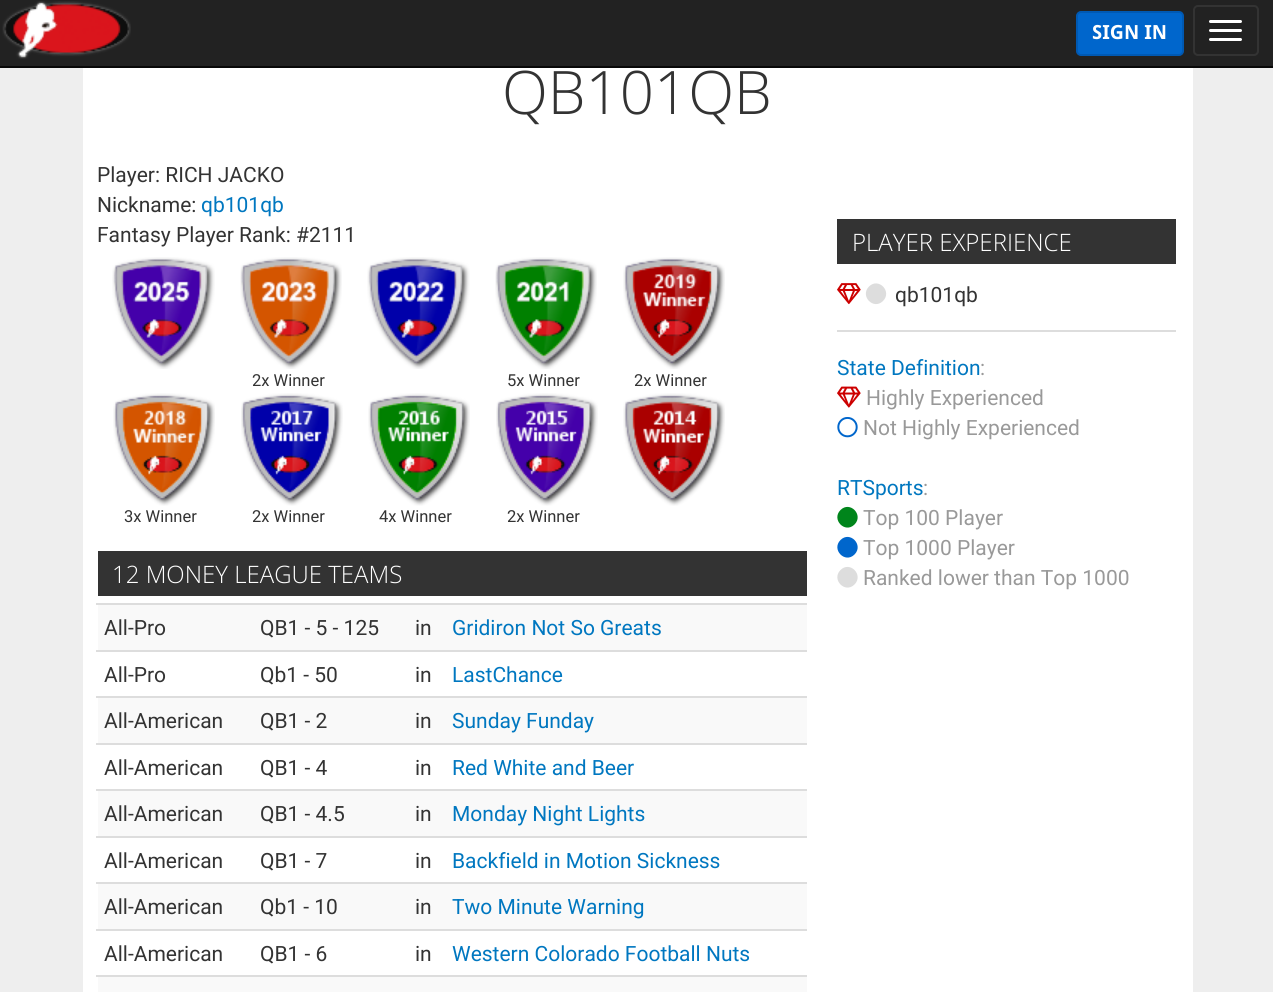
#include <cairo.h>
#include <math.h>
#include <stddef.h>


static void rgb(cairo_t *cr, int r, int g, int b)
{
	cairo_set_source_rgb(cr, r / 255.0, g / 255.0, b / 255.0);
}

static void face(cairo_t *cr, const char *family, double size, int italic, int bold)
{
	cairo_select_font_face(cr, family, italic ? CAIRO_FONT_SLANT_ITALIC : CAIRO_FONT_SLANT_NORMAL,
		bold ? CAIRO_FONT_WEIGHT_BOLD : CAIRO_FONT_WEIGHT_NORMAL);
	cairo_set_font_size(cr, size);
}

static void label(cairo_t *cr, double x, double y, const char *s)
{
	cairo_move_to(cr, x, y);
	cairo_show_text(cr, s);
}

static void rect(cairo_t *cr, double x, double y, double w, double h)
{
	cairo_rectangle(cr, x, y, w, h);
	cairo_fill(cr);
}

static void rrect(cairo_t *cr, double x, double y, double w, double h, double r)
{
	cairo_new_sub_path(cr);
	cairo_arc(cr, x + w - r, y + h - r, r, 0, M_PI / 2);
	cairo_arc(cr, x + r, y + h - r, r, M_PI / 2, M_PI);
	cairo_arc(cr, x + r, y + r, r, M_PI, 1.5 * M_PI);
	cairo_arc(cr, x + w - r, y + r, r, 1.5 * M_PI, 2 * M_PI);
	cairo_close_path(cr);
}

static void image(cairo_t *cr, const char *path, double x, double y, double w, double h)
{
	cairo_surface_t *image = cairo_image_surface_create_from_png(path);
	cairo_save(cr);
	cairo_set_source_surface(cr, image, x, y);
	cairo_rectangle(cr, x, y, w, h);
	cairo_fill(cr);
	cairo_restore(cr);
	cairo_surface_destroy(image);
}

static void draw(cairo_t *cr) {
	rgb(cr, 238, 238, 238);
	cairo_paint(cr);
	rgb(cr, 34, 34, 34);
	rect(cr, 0, 0, 1273, 66);
	rgb(cr, 8, 8, 8);
	rect(cr, 0, 66, 1273, 2);
	image(cr, "image0.png", 2, 1, 129, 58);
	rgb(cr, 0, 102, 204);
	rrect(cr, 1077, 12, 106, 43, 4);
	cairo_fill_preserve(cr);
	rgb(cr, 0, 89, 179);
	cairo_stroke(cr);
	face(cr, "Droid Sans", 19.5, 0, 1);
	rgb(cr, 255, 255, 255);
	label(cr, 1092, 39, "SIGN IN");
	rrect(cr, 1194, 6, 64, 49, 4);
	rgb(cr, 51, 51, 51);
	cairo_stroke(cr);
	rgb(cr, 255, 255, 255);
	rrect(cr, 1209, 20, 33, 3, 1.5);
	cairo_fill(cr);
	rrect(cr, 1209, 29, 33, 3, 1.5);
	cairo_fill(cr);
	rrect(cr, 1209, 38, 33, 3, 1.5);
	cairo_fill(cr);
	rect(cr, 83, 68, 1110, 924);
	face(cr, "Open Sans Light", 60, 0, 0);
	rgb(cr, 51, 51, 51);
	label(cr, 502, 114, "QB101QB");
	face(cr, "Roboto", 21, 0, 0);
	label(cr, 97, 182, "Player: RICH JACKO");
	label(cr, 97, 212, "Nickname:");
	rgb(cr, 0, 119, 192);
	label(cr, 201, 212, "qb101qb");
	rgb(cr, 51, 51, 51);
	label(cr, 97, 242, "Fantasy Player Rank: #2111");
	image(cr, "image1.png", 112, 257, 103, 112);
	image(cr, "image2.png", 367, 257, 103, 112);
	image(cr, "image3.png", 240, 257, 102, 112);
	face(cr, "Roboto", 16.5, 0, 0);
	label(cr, 252, 386, "2x Winner");
	image(cr, "image4.png", 495, 257, 102, 112);
	label(cr, 507, 386, "5x Winner");
	image(cr, "image5.png", 623, 257, 102, 112);
	label(cr, 634, 386, "2x Winner");
	image(cr, "image6.png", 623, 393, 102, 113);
	image(cr, "image7.png", 113, 393, 102, 113);
	label(cr, 124, 522, "3x Winner");
	image(cr, "image8.png", 241, 393, 102, 113);
	label(cr, 252, 522, "2x Winner");
	image(cr, "image9.png", 368, 393, 102, 113);
	label(cr, 379, 522, "4x Winner");
	image(cr, "image10.png", 496, 393, 102, 113);
	label(cr, 507, 522, "2x Winner");
	rect(cr, 98, 551, 709, 45);
	face(cr, "Open Sans Light", 24, 0, 0);
	rgb(cr, 255, 255, 255);
	label(cr, 112, 583, "12 MONEY LEAGUE TEAMS");
	rgb(cr, 249, 249, 249);
	rect(cr, 98, 605, 709, 45);
	face(cr, "Roboto", 21, 0, 0);
	rgb(cr, 51, 51, 51);
	label(cr, 104, 635, "All-Pro");
	label(cr, 260, 635, "QB1 - 5 - 125");
	label(cr, 415, 635, "in");
	rgb(cr, 221, 221, 221);
	rect(cr, 96, 603, 711, 2);
	rgb(cr, 0, 119, 192);
	label(cr, 452, 635, "Gridiron Not So Greats");
	rgb(cr, 51, 51, 51);
	label(cr, 104, 682, "All-Pro");
	label(cr, 260, 682, "Qb1 - 50");
	label(cr, 415, 682, "in");
	rgb(cr, 221, 221, 221);
	rect(cr, 96, 650, 711, 2);
	rgb(cr, 0, 119, 192);
	label(cr, 452, 682, "LastChance");
	rgb(cr, 249, 249, 249);
	rect(cr, 98, 698, 709, 45);
	rgb(cr, 51, 51, 51);
	label(cr, 104, 728, "All-American");
	label(cr, 260, 728, "QB1 - 2");
	label(cr, 415, 728, "in");
	rgb(cr, 221, 221, 221);
	rect(cr, 96, 696, 711, 2);
	rgb(cr, 0, 119, 192);
	label(cr, 452, 728, "Sunday Funday");
	rgb(cr, 51, 51, 51);
	label(cr, 104, 775, "All-American");
	label(cr, 260, 775, "QB1 - 4");
	label(cr, 415, 775, "in");
	rgb(cr, 221, 221, 221);
	rect(cr, 96, 743, 711, 2);
	rgb(cr, 0, 119, 192);
	label(cr, 452, 775, "Red White and Beer");
	rgb(cr, 249, 249, 249);
	rect(cr, 98, 791, 709, 45);
	rgb(cr, 51, 51, 51);
	label(cr, 104, 821, "All-American");
	label(cr, 260, 821, "QB1 - 4.5");
	label(cr, 415, 821, "in");
	rgb(cr, 221, 221, 221);
	rect(cr, 96, 789, 711, 2);
	rgb(cr, 0, 119, 192);
	label(cr, 452, 821, "Monday Night Lights");
	rgb(cr, 51, 51, 51);
	label(cr, 104, 868, "All-American");
	label(cr, 260, 868, "QB1 - 7");
	label(cr, 415, 868, "in");
	rgb(cr, 221, 221, 221);
	rect(cr, 96, 836, 711, 2);
	rgb(cr, 0, 119, 192);
	label(cr, 452, 868, "Backfield in Motion Sickness");
	rgb(cr, 249, 249, 249);
	rect(cr, 98, 884, 709, 45);
	rgb(cr, 51, 51, 51);
	label(cr, 104, 914, "All-American");
	label(cr, 260, 914, "Qb1 - 10");
	label(cr, 415, 914, "in");
	rgb(cr, 221, 221, 221);
	rect(cr, 96, 882, 711, 2);
	rgb(cr, 0, 119, 192);
	label(cr, 452, 914, "Two Minute Warning");
	rgb(cr, 51, 51, 51);
	label(cr, 104, 961, "All-American");
	label(cr, 260, 961, "QB1 - 6");
	label(cr, 415, 961, "in");
	rgb(cr, 221, 221, 221);
	rect(cr, 96, 929, 711, 2);
	rgb(cr, 0, 119, 192);
	label(cr, 452, 961, "Western Colorado Football Nuts");
	rgb(cr, 249, 249, 249);
	rect(cr, 98, 977, 709, 15);
	rgb(cr, 221, 221, 221);
	rect(cr, 96, 975, 711, 2);
	rgb(cr, 51, 51, 51);
	rect(cr, 837, 219, 339, 45);
	face(cr, "Open Sans Light", 24, 0, 0);
	rgb(cr, 255, 255, 255);
	label(cr, 852, 251, "PLAYER EXPERIENCE");
	image(cr, "image11.png", 837, 283, 24, 22);
	rgb(cr, 221, 221, 221);
	cairo_new_path(cr);
	cairo_move_to(cr, 869, 286.5);
	cairo_curve_to(cr, 878.5, 277, 892.5, 291.5, 883, 301);
	cairo_curve_to(cr, 873.5, 310.5, 859.5, 296, 869, 286.5);
	cairo_close_path(cr);
	cairo_fill(cr);
	face(cr, "Roboto", 21, 0, 0);
	rgb(cr, 51, 51, 51);
	label(cr, 895, 302, "qb101qb");
	rgb(cr, 221, 221, 221);
	rect(cr, 837, 330, 339, 2);
	rgb(cr, 0, 119, 192);
	label(cr, 837, 375, "State Definition");
	rgb(cr, 153, 153, 153);
	label(cr, 980, 375, ":");
	image(cr, "image12.png", 837, 386, 24, 22);
	label(cr, 866, 405, "Highly Experienced");
	image(cr, "image13.png", 837, 417, 21, 21);
	label(cr, 863, 435, "Not Highly Experienced");
	rgb(cr, 0, 119, 192);
	label(cr, 837, 495, "RTSports");
	rgb(cr, 153, 153, 153);
	label(cr, 923, 495, ":");
	rgb(cr, 0, 133, 27);
	cairo_new_path(cr);
	cairo_move_to(cr, 840.5, 510);
	cairo_curve_to(cr, 850, 500.5, 864, 515, 854.5, 524.5);
	cairo_curve_to(cr, 845, 534, 831, 519.5, 840.5, 510);
	cairo_close_path(cr);
	cairo_fill(cr);
	rgb(cr, 153, 153, 153);
	label(cr, 863, 525, "Top 100 Player");
	rgb(cr, 0, 102, 204);
	cairo_new_path(cr);
	cairo_move_to(cr, 840.5, 540);
	cairo_curve_to(cr, 850, 530.5, 864, 545, 854.5, 554.5);
	cairo_curve_to(cr, 845, 564, 831, 549.5, 840.5, 540);
	cairo_close_path(cr);
	cairo_fill(cr);
	rgb(cr, 153, 153, 153);
	label(cr, 863, 555, "Top 1000 Player");
	rgb(cr, 221, 221, 221);
	cairo_new_path(cr);
	cairo_move_to(cr, 840.5, 570);
	cairo_curve_to(cr, 850, 560.5, 864, 575, 854.5, 584.5);
	cairo_curve_to(cr, 845, 594, 831, 579.5, 840.5, 570);
	cairo_close_path(cr);
	cairo_fill(cr);
	rgb(cr, 153, 153, 153);
	label(cr, 863, 585, "Ranked lower than Top 1000");
}

int main(void) {
	cairo_surface_t *surface = cairo_image_surface_create(CAIRO_FORMAT_RGB24, 1273, 992);
	cairo_t *cr = cairo_create(surface);
	cairo_font_options_t *options = cairo_font_options_create();
	cairo_font_options_set_hint_metrics(options, CAIRO_HINT_METRICS_OFF);
	cairo_font_options_set_hint_style(options, CAIRO_HINT_STYLE_NONE);
	cairo_set_font_options(cr, options);
	cairo_set_miter_limit(cr, 4);
	draw(cr);
	cairo_surface_write_to_png(surface, "render.png");
	cairo_font_options_destroy(options);
	cairo_destroy(cr);
	cairo_surface_destroy(surface);
	return 0;
}
